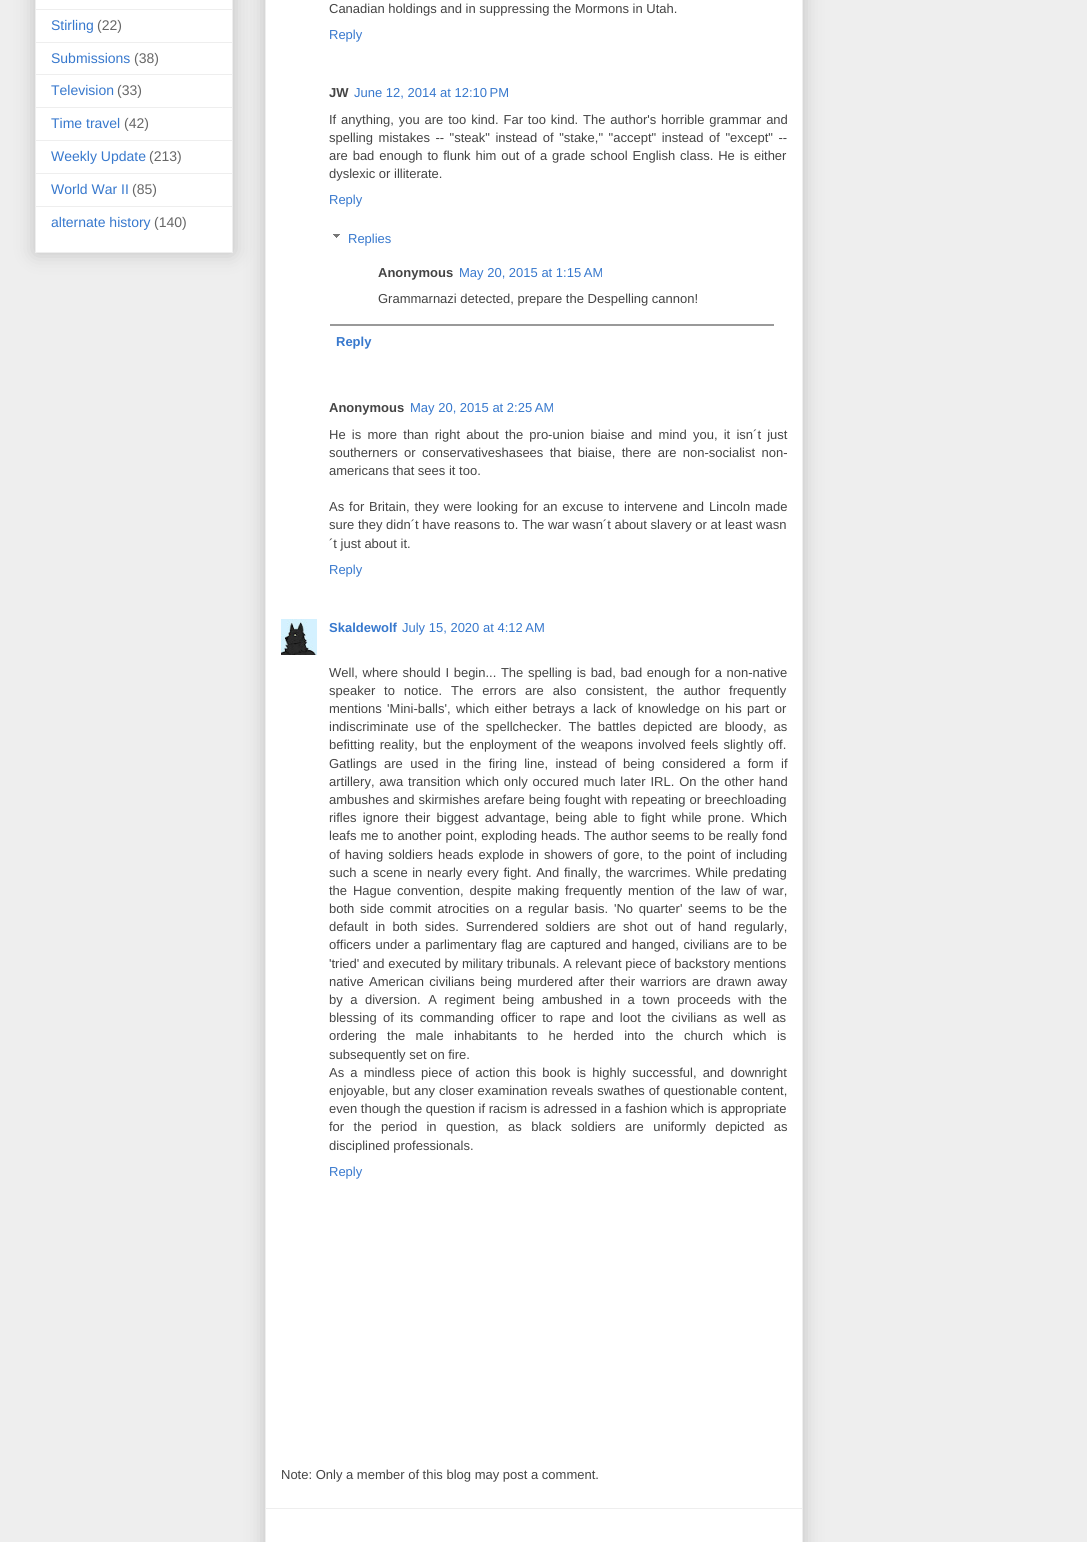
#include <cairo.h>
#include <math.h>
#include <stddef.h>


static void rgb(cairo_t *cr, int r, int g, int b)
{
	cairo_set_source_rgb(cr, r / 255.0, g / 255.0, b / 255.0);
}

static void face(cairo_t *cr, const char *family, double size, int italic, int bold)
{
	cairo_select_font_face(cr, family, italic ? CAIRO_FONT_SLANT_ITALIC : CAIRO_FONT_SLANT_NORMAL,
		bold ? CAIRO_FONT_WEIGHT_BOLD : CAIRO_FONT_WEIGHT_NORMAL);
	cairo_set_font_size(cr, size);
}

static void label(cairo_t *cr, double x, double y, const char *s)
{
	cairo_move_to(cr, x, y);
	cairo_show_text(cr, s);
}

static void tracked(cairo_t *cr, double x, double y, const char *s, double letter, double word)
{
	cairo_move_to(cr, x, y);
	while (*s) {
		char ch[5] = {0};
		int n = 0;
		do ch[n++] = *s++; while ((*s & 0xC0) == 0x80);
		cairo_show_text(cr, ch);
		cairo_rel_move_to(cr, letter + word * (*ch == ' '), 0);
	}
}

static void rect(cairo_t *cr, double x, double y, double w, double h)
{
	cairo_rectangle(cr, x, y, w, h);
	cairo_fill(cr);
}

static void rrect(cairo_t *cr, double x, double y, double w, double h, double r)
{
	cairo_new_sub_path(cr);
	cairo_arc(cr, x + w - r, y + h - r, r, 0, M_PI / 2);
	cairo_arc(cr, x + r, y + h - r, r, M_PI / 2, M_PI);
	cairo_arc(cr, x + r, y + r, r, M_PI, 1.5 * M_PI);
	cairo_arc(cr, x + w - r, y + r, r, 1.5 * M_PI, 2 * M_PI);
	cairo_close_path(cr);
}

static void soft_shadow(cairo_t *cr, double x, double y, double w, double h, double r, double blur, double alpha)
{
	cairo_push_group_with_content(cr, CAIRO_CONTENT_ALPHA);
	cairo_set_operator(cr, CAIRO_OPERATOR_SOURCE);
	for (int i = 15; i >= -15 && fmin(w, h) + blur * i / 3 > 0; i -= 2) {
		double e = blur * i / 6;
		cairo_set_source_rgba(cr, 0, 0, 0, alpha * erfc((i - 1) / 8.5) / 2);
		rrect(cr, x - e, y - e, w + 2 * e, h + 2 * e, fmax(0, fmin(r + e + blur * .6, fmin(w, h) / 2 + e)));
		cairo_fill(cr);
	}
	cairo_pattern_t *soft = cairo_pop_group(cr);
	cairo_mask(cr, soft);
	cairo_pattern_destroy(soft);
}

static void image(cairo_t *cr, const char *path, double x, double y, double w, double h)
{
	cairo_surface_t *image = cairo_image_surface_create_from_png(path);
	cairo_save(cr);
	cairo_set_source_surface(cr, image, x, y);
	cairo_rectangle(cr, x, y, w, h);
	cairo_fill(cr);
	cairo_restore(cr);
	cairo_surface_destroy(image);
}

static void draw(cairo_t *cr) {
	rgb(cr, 238, 238, 238);
	cairo_paint(cr);
	rgb(cr, 0, 0, 0);
	soft_shadow(cr, 35, -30, 198, 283, 0, 10, 0.2);
	rgb(cr, 255, 255, 255);
	cairo_rectangle(cr, 35.5, -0.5, 197, 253);
	cairo_fill_preserve(cr);
	rgb(cr, 238, 238, 238);
	cairo_set_line_width(cr, 1);
	cairo_stroke(cr);
	rect(cr, 36, 9, 196, 1);
	face(cr, "Liberation Sans", 14, 0, 0);
	rgb(cr, 55, 120, 205);
	label(cr, 51, 30, "Stirling");
	rgb(cr, 102, 102, 102);
	label(cr, 97, 30, "(22)");
	rgb(cr, 238, 238, 238);
	rect(cr, 36, 42, 196, 1);
	rgb(cr, 55, 120, 205);
	label(cr, 51, 63, "Submissions");
	rgb(cr, 102, 102, 102);
	label(cr, 134, 63, "(38)");
	rgb(cr, 238, 238, 238);
	rect(cr, 36, 74, 196, 1);
	rgb(cr, 55, 120, 205);
	label(cr, 51, 95, "Television");
	rgb(cr, 102, 102, 102);
	label(cr, 117, 95, "(33)");
	rgb(cr, 238, 238, 238);
	rect(cr, 36, 107, 196, 1);
	rgb(cr, 55, 120, 205);
	label(cr, 51, 128, "Time travel");
	rgb(cr, 102, 102, 102);
	label(cr, 124, 128, "(42)");
	rgb(cr, 238, 238, 238);
	rect(cr, 36, 140, 196, 1);
	rgb(cr, 55, 120, 205);
	label(cr, 51, 161, "Weekly Update");
	rgb(cr, 102, 102, 102);
	label(cr, 149, 161, "(213)");
	rgb(cr, 238, 238, 238);
	rect(cr, 36, 173, 196, 1);
	rgb(cr, 55, 120, 205);
	label(cr, 51, 194, "World War II");
	rgb(cr, 102, 102, 102);
	label(cr, 132, 194, "(85)");
	rgb(cr, 238, 238, 238);
	rect(cr, 36, 206, 196, 1);
	rgb(cr, 55, 120, 205);
	label(cr, 51, 227, "alternate history");
	rgb(cr, 102, 102, 102);
	label(cr, 154, 227, "(140)");
	rgb(cr, 0, 0, 0);
	soft_shadow(cr, 265, -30, 538, 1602, 0, 10, 0.2);
	rgb(cr, 255, 255, 255);
	cairo_rectangle(cr, 265.5, -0.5, 537, 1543);
	cairo_fill_preserve(cr);
	rgb(cr, 238, 238, 238);
	cairo_stroke(cr);
	face(cr, "Liberation Sans", 13, 0, 0);
	rgb(cr, 68, 68, 68);
	label(cr, 329, 13, "Canadian holdings and in suppressing the Mormons in Utah.");
	rgb(cr, 55, 120, 205);
	label(cr, 329, 39, "Reply");
	face(cr, "Liberation Sans", 13, 0, 1);
	rgb(cr, 68, 68, 68);
	label(cr, 329, 97, "JW");
	face(cr, "Liberation Sans", 13, 0, 0);
	rgb(cr, 55, 120, 205);
	label(cr, 354, 97, "June 12, 2014 at 12:10 PM");
	rgb(cr, 68, 68, 68);
	tracked(cr, 329, 124, "If anything, you are too kind. Far too kind. The author's horrible grammar and", 0, 1.25);
	tracked(cr, 329, 142, "spelling mistakes -- \"steak\" instead of \"stake,\" \"accept\" instead of \"except\" --", 0, 1.9);
	tracked(cr, 329, 160, "are bad enough to flunk him out of a grade school English class. He is either", 0, 1.25);
	label(cr, 329, 178, "dyslexic or illiterate.");
	rgb(cr, 55, 120, 205);
	label(cr, 329, 204, "Reply");
	image(cr, "image0.png", 333, 234, 7, 4);
	label(cr, 348, 243, "Replies");
	face(cr, "Liberation Sans", 13, 0, 1);
	rgb(cr, 68, 68, 68);
	label(cr, 378, 277, "Anonymous");
	face(cr, "Liberation Sans", 13, 0, 0);
	rgb(cr, 55, 120, 205);
	label(cr, 459, 277, "May 20, 2015 at 1:15 AM");
	rgb(cr, 68, 68, 68);
	label(cr, 378, 303, "Grammarnazi detected, prepare the Despelling cannon!");
	rgb(cr, 153, 153, 153);
	rect(cr, 330, 324, 444, 2);
	face(cr, "Liberation Sans", 13, 0, 1);
	rgb(cr, 55, 120, 205);
	label(cr, 336, 346, "Reply");
	rgb(cr, 68, 68, 68);
	label(cr, 329, 412, "Anonymous");
	face(cr, "Liberation Sans", 13, 0, 0);
	rgb(cr, 55, 120, 205);
	label(cr, 410, 412, "May 20, 2015 at 2:25 AM");
	rgb(cr, 68, 68, 68);
	tracked(cr, 329, 439, "He is more than right about the pro-union biaise and mind you, it isn´t just", 0, 2.6);
	tracked(cr, 329, 457, "southerners or conservativeshasees that biaise, there are non-socialist non-", 0, 2.75);
	label(cr, 329, 475, "americans that sees it too.");
	tracked(cr, 329, 511, "As for Britain, they were looking for an excuse to intervene and Lincoln made", 0, 1.25);
	label(cr, 329, 529, "sure they didn´t have reasons to. The war wasn´t about slavery or at least wasn");
	label(cr, 329, 548, "´t just about it.");
	rgb(cr, 55, 120, 205);
	label(cr, 329, 574, "Reply");
	image(cr, "image1.png", 281, 619, 36, 36);
	face(cr, "Liberation Sans", 13, 0, 1);
	label(cr, 329, 632, "Skaldewolf");
	face(cr, "Liberation Sans", 13, 0, 0);
	label(cr, 402, 632, "July 15, 2020 at 4:12 AM");
	rgb(cr, 68, 68, 68);
	tracked(cr, 329, 677, "Well, where should I begin... The spelling is bad, bad enough for a non-native", 0, 1);
	tracked(cr, 329, 695, "speaker to notice. The errors are also consistent, the author frequently", 0, 5.25);
	tracked(cr, 329, 713, "mentions 'Mini-balls', which either betrays a lack of knowledge on his part or", 0, 1.75);
	tracked(cr, 329, 731, "indiscriminate use of the spellchecker. The battles depicted are bloody, as", 0, 3.25);
	tracked(cr, 329, 749, "befitting reality, but the enployment of the weapons involved feels slightly off.", 0, 1.5);
	tracked(cr, 329, 768, "Gatlings are used in the firing line, instead of being considered a form if", 0, 3.75);
	tracked(cr, 329, 786, "artillery, awa transition which only occured much later IRL. On the other hand", 0, 1.25);
	tracked(cr, 329, 804, "ambushes and skirmishes arefare being fought with repeating or breechloading", 0, 0.25);
	tracked(cr, 329, 822, "rifles ignore their biggest advantage, being able to fight while prone. Which", 0, 2.6);
	tracked(cr, 329, 840, "leafs me to another point, exploding heads. The author seems to be really fond", 0, 0.4);
	tracked(cr, 329, 859, "of having soldiers heads explode in showers of gore, to the point of including", 0, 1.4);
	tracked(cr, 329, 877, "such a scene in nearly every fight. And finally, the warcrimes. While predating", 0, 1);
	tracked(cr, 329, 895, "the Hague convention, despite making frequently mention of the law of war,", 0, 2.25);
	tracked(cr, 329, 913, "both side commit atrocities on a regular basis. 'No quarter' seems to be the", 0, 2.1);
	tracked(cr, 329, 931, "default in both sides. Surrendered soldiers are shot out of hand regularly,", 0, 3.5);
	tracked(cr, 329, 949, "officers under a parlimentary flag are captured and hanged, civilians are to be", 0, 1);
	label(cr, 329, 968, "'tried' and executed by military tribunals. A relevant piece of backstory mentions");
	tracked(cr, 329, 986, "native American civilians being murdered after their warriors are drawn away", 0, 1.75);
	tracked(cr, 329, 1004, "by a diversion. A regiment being ambushed in a town proceeds with the", 0, 3.9);
	tracked(cr, 329, 1022, "blessing of its commanding officer to rape and loot the civilians as well as", 0, 2.75);
	tracked(cr, 329, 1040, "ordering the male inhabitants to he herded into the church which is", 0, 6.75);
	label(cr, 329, 1059, "subsequently set on fire.");
	tracked(cr, 329, 1077, "As a mindless piece of action this book is highly successful, and downright", 0, 2.5);
	tracked(cr, 329, 1095, "enjoyable, but any closer examination reveals swathes of questionable content,", 0, 0.25);
	label(cr, 329, 1113, "even though the question if racism is adressed in a fashion which is appropriate");
	tracked(cr, 329, 1131, "for the period in question, as black soldiers are uniformly depicted as", 0, 5.75);
	label(cr, 329, 1150, "disciplined professionals.");
	rgb(cr, 55, 120, 205);
	label(cr, 329, 1176, "Reply");
	rgb(cr, 68, 68, 68);
	label(cr, 281, 1479, "Note: Only a member of this blog may post a comment.");
	rgb(cr, 238, 238, 238);
	rect(cr, 266, 1508, 536, 1);
}

int main(void) {
	cairo_surface_t *surface = cairo_image_surface_create(CAIRO_FORMAT_RGB24, 1087, 1542);
	cairo_t *cr = cairo_create(surface);
	cairo_font_options_t *options = cairo_font_options_create();
	cairo_font_options_set_hint_metrics(options, CAIRO_HINT_METRICS_OFF);
	cairo_font_options_set_hint_style(options, CAIRO_HINT_STYLE_NONE);
	cairo_set_font_options(cr, options);
	cairo_set_miter_limit(cr, 4);
	draw(cr);
	cairo_surface_write_to_png(surface, "render.png");
	cairo_font_options_destroy(options);
	cairo_destroy(cr);
	cairo_surface_destroy(surface);
	return 0;
}
